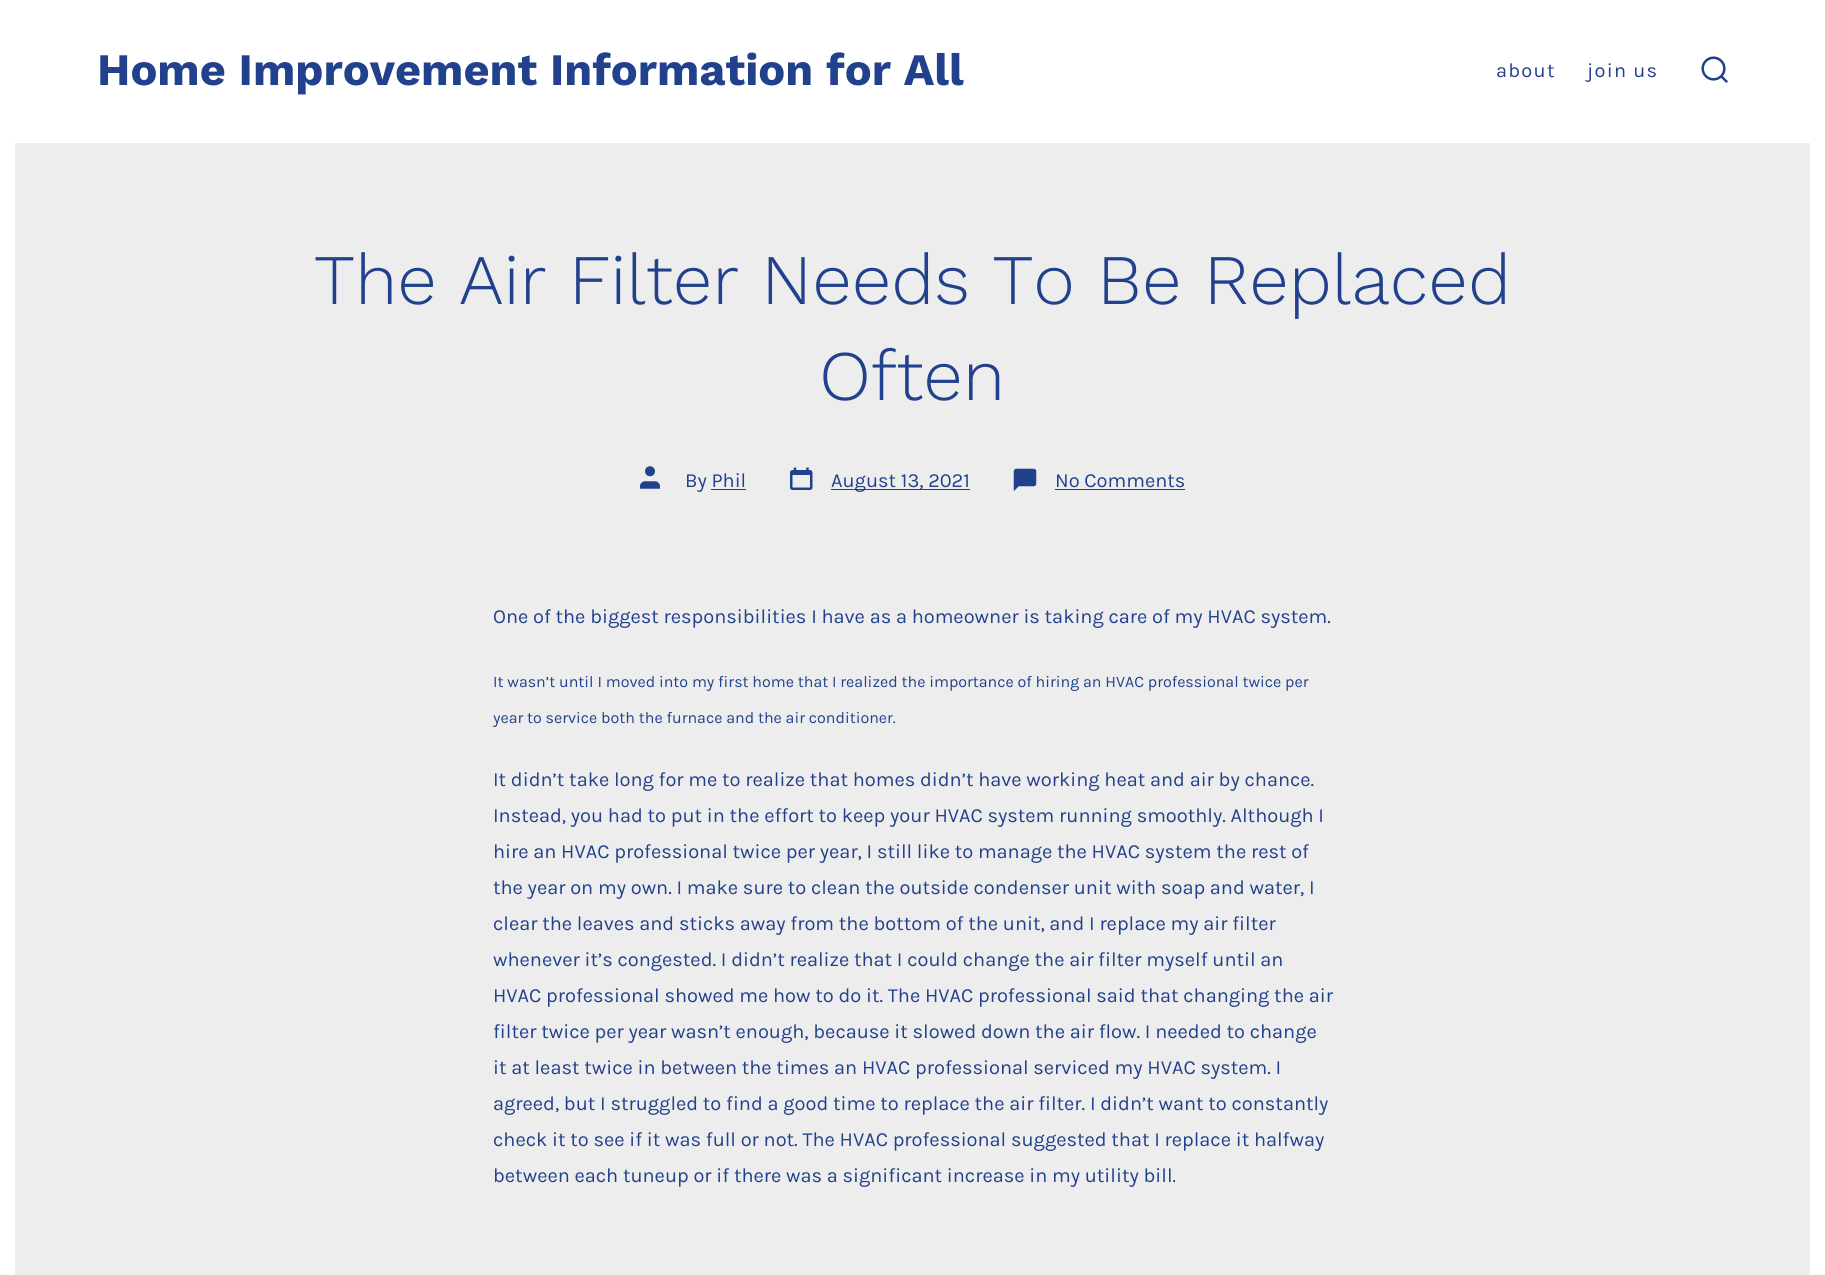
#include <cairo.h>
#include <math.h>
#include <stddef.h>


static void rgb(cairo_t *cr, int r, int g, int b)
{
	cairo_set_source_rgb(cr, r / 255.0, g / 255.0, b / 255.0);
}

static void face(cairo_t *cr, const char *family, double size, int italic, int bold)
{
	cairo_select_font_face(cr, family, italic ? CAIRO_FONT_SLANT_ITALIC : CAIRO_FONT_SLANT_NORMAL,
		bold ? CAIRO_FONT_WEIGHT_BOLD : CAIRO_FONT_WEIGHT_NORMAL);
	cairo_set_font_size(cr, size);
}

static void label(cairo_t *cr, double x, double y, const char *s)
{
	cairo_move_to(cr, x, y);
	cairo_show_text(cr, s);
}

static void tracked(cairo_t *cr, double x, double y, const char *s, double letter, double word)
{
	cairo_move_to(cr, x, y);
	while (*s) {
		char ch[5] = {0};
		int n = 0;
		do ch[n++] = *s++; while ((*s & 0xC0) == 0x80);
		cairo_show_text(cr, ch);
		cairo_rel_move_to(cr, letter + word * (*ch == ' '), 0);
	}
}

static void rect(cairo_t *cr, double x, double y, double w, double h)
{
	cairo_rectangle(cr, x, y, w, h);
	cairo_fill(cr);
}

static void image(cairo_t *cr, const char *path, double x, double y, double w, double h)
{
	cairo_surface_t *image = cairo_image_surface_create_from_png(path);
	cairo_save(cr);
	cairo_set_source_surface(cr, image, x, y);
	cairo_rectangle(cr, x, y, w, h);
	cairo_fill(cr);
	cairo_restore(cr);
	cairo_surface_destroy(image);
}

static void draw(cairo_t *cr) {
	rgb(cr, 237, 237, 237);
	cairo_paint(cr);
	rgb(cr, 255, 255, 255);
	rect(cr, 1810, 0, 15, 1275);
	rect(cr, 0, 0, 15, 1275);
	rect(cr, 15, 0, 1795, 143);
	face(cr, "Work Sans", 45, 0, 1);
	rgb(cr, 33, 65, 140);
	label(cr, 97, 85, "Home Improvement Information for All");
	face(cr, "Karla", 20, 0, 0);
	tracked(cr, 1496, 77, "about", 1.25, 0);
	tracked(cr, 1587, 77, "join us", 1.25, 0);
	image(cr, "image0.png", 1701, 56, 27, 27);
	face(cr, "Work Sans Light", 71, 0, 0);
	label(cr, 314, 304, "The Air Filter Needs To Be Replaced");
	label(cr, 819, 400, "Often");
	image(cr, "image1.png", 640, 466, 20, 23);
	face(cr, "Karla", 20, 0, 0);
	label(cr, 685, 487, "By Phil");
	rect(cr, 711, 489, 35, 1);
	image(cr, "image2.png", 790, 467, 23, 23);
	rect(cr, 831, 489, 139, 1);
	label(cr, 831, 487, "August 13, 2021");
	image(cr, "image3.png", 1013, 468, 24, 24);
	label(cr, 1055, 487, "No Comments");
	rect(cr, 1055, 489, 130, 1);
	label(cr, 493, 623, "One of the biggest responsibilities I have as a homeowner is taking care of my HVAC system.");
	face(cr, "Karla", 16, 0, 0);
	label(cr, 493, 687, "It wasn’t until I moved into my first home that I realized the importance of hiring an HVAC professional twice per");
	label(cr, 493, 723, "year to service both the furnace and the air conditioner.");
	face(cr, "Karla", 20, 0, 0);
	label(cr, 493, 786, "It didn’t take long for me to realize that homes didn’t have working heat and air by chance.");
	label(cr, 493, 822, "Instead, you had to put in the effort to keep your HVAC system running smoothly. Although I");
	label(cr, 493, 858, "hire an HVAC professional twice per year, I still like to manage the HVAC system the rest of");
	label(cr, 493, 894, "the year on my own. I make sure to clean the outside condenser unit with soap and water, I");
	label(cr, 493, 930, "clear the leaves and sticks away from the bottom of the unit, and I replace my air filter");
	label(cr, 493, 966, "whenever it’s congested. I didn’t realize that I could change the air filter myself until an");
	label(cr, 493, 1002, "HVAC professional showed me how to do it. The HVAC professional said that changing the air");
	label(cr, 493, 1038, "filter twice per year wasn’t enough, because it slowed down the air flow. I needed to change");
	label(cr, 493, 1074, "it at least twice in between the times an HVAC professional serviced my HVAC system. I");
	label(cr, 493, 1110, "agreed, but I struggled to find a good time to replace the air filter. I didn’t want to constantly");
	label(cr, 493, 1146, "check it to see if it was full or not. The HVAC professional suggested that I replace it halfway");
	label(cr, 493, 1182, "between each tuneup or if there was a significant increase in my utility bill.");
}

int main(void) {
	cairo_surface_t *surface = cairo_image_surface_create(CAIRO_FORMAT_RGB24, 1825, 1275);
	cairo_t *cr = cairo_create(surface);
	cairo_font_options_t *options = cairo_font_options_create();
	cairo_font_options_set_hint_metrics(options, CAIRO_HINT_METRICS_OFF);
	cairo_font_options_set_hint_style(options, CAIRO_HINT_STYLE_NONE);
	cairo_set_font_options(cr, options);
	cairo_set_miter_limit(cr, 4);
	draw(cr);
	cairo_surface_write_to_png(surface, "render.png");
	cairo_font_options_destroy(options);
	cairo_destroy(cr);
	cairo_surface_destroy(surface);
	return 0;
}
